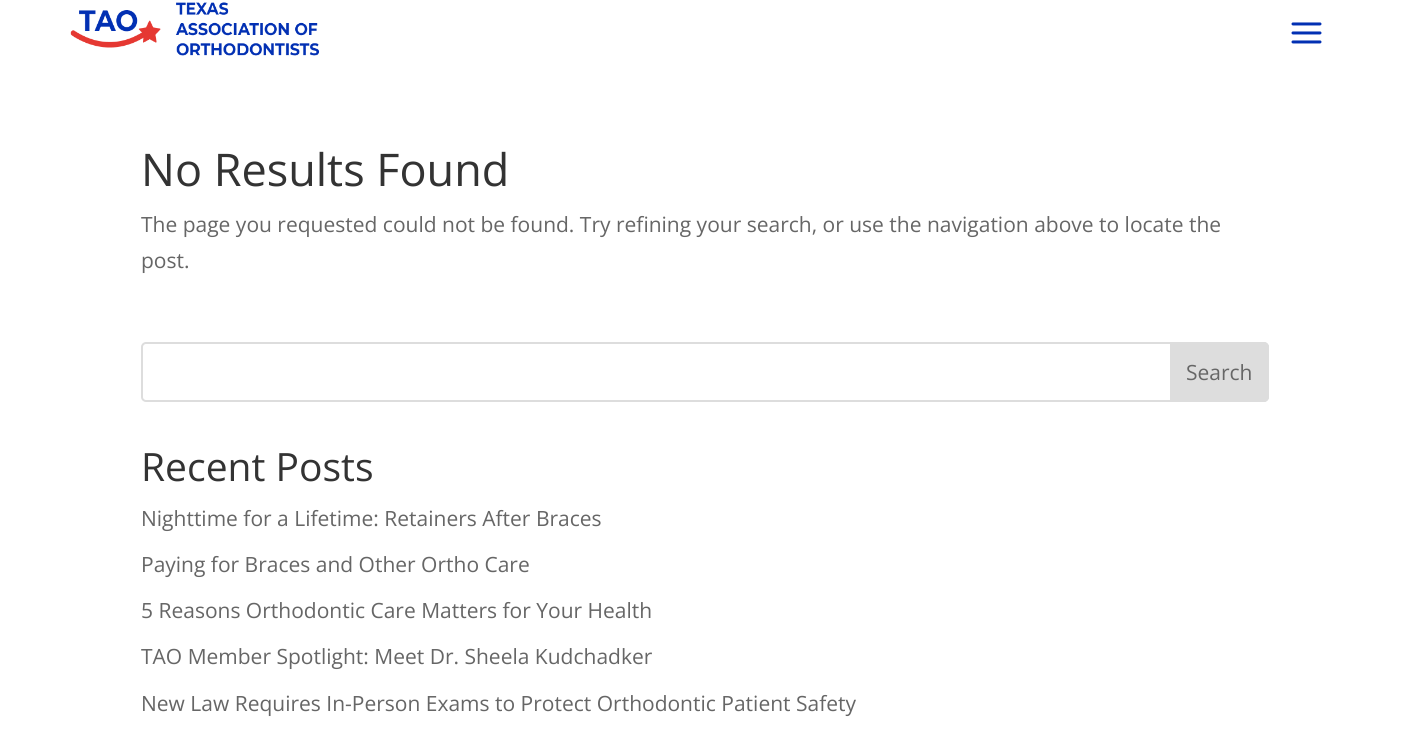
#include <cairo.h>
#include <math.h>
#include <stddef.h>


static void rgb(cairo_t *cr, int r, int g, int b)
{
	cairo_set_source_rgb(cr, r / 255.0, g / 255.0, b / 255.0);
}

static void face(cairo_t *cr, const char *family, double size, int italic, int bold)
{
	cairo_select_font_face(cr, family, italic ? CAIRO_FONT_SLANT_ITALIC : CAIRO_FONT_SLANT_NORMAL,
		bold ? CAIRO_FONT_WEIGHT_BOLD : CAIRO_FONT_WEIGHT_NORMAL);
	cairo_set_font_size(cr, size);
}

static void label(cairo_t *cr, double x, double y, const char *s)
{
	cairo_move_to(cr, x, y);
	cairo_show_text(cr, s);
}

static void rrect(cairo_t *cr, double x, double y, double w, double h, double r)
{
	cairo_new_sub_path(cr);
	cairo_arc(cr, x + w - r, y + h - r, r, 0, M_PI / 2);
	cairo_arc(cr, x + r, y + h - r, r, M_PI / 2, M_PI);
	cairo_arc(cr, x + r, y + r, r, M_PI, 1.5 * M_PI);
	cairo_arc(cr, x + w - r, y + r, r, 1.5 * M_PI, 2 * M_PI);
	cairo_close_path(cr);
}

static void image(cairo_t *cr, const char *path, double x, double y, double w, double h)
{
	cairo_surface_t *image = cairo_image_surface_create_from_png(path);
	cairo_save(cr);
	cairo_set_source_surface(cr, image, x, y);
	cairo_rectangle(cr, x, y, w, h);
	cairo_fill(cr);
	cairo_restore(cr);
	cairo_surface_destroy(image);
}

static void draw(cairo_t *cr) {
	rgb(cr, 255, 255, 255);
	cairo_paint(cr);
	image(cr, "image0.png", 70, 2, 250, 54);
	image(cr, "image1.png", 1291, 22, 31, 22);
	face(cr, "Open Sans", 45, 0, 0);
	rgb(cr, 51, 51, 51);
	label(cr, 141, 186, "No Results Found");
	face(cr, "Open Sans", 21, 0, 0);
	rgb(cr, 102, 102, 102);
	label(cr, 141, 232, "The page you requested could not be found. Try refining your search, or use the navigation above to locate the");
	label(cr, 141, 268, "post.");
	rrect(cr, 142, 343, 1126, 58, 4);
	rgb(cr, 221, 221, 221);
	cairo_stroke(cr);
	cairo_new_path(cr);
	cairo_move_to(cr, 1171, 343);
	cairo_line_to(cr, 1264, 343);
	cairo_curve_to(cr, 1266, 343, 1268, 345, 1268, 347);
	cairo_line_to(cr, 1268, 397);
	cairo_curve_to(cr, 1268, 399, 1266, 401, 1264, 401);
	cairo_line_to(cr, 1171, 401);
	cairo_close_path(cr);
	cairo_fill_preserve(cr);
	cairo_stroke(cr);
	rgb(cr, 102, 102, 102);
	label(cr, 1186, 380, "Search");
	face(cr, "Open Sans", 39, 0, 0);
	rgb(cr, 51, 51, 51);
	label(cr, 141, 481, "Recent Posts");
	face(cr, "Open Sans", 21, 0, 0);
	rgb(cr, 102, 102, 102);
	label(cr, 141, 526, "Nighttime for a Lifetime: Retainers After Braces");
	label(cr, 141, 572, "Paying for Braces and Other Ortho Care");
	label(cr, 141, 618, "5 Reasons Orthodontic Care Matters for Your Health");
	label(cr, 141, 664, "TAO Member Spotlight: Meet Dr. Sheela Kudchadker");
	label(cr, 141, 711, "New Law Requires In-Person Exams to Protect Orthodontic Patient Safety");
}

int main(void) {
	cairo_surface_t *surface = cairo_image_surface_create(CAIRO_FORMAT_RGB24, 1410, 736);
	cairo_t *cr = cairo_create(surface);
	cairo_font_options_t *options = cairo_font_options_create();
	cairo_font_options_set_hint_metrics(options, CAIRO_HINT_METRICS_OFF);
	cairo_font_options_set_hint_style(options, CAIRO_HINT_STYLE_NONE);
	cairo_set_font_options(cr, options);
	cairo_set_miter_limit(cr, 4);
	draw(cr);
	cairo_surface_write_to_png(surface, "render.png");
	cairo_font_options_destroy(options);
	cairo_destroy(cr);
	cairo_surface_destroy(surface);
	return 0;
}
